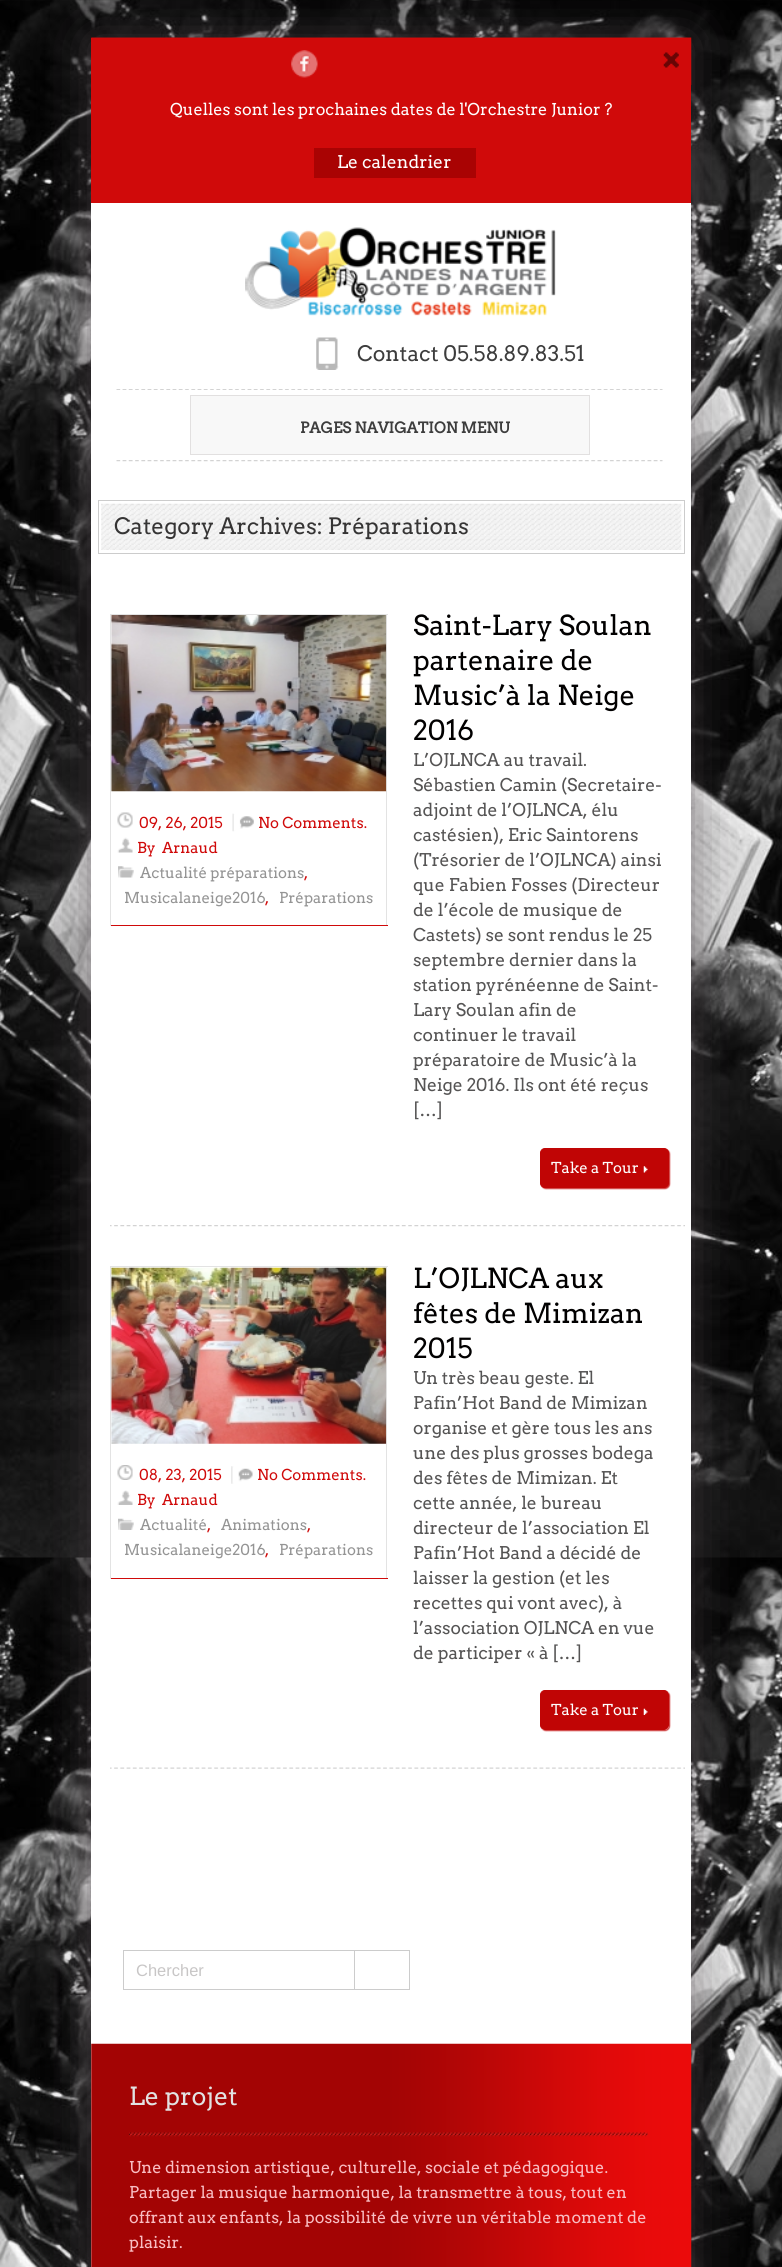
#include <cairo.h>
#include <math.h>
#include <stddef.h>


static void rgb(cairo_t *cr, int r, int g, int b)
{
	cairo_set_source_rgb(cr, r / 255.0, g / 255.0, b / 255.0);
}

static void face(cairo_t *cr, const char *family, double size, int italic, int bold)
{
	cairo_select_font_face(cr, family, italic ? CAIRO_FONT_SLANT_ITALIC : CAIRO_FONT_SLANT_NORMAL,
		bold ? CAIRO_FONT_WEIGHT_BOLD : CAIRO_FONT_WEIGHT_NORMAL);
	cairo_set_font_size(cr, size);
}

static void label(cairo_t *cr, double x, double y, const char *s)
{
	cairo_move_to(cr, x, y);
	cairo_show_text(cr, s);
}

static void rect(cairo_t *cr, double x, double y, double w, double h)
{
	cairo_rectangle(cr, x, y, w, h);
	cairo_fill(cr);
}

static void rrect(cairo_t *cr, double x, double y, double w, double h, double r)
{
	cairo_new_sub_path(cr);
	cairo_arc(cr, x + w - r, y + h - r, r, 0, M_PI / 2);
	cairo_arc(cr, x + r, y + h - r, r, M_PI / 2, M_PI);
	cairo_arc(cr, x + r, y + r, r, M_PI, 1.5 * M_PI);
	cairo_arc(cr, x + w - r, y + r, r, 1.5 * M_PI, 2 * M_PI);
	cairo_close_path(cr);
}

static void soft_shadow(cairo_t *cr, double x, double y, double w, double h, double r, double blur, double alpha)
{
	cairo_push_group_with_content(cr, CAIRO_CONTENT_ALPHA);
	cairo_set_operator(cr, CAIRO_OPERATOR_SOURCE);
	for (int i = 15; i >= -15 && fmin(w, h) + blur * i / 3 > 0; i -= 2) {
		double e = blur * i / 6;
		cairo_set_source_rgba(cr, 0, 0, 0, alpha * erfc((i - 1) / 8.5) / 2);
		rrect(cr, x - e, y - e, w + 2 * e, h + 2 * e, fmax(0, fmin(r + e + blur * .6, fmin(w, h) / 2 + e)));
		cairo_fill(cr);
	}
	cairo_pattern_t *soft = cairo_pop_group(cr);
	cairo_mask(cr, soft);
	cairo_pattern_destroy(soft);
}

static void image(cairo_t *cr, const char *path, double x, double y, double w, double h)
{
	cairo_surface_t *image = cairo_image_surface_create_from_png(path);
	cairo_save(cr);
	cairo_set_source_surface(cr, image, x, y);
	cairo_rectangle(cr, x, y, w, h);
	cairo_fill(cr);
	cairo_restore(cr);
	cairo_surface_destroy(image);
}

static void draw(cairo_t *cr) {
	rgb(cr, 255, 255, 255);
	cairo_paint(cr);
	image(cr, "image0.png", 0, 0, 782, 2267);
	rgb(cr, 77, 70, 74);
	soft_shadow(cr, 91, 38, 600, 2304, 0, 25, 0.69);
	rgb(cr, 255, 255, 255);
	rect(cr, 91, 203, 600, 2064);
	rgb(cr, 208, 10, 10);
	rect(cr, 91, 38, 600, 165);
	image(cr, "image1.png", 91, 37, 601, 48);
	image(cr, "image2.png", 291, 50, 27, 28);
	image(cr, "image3.png", 663, 52, 16, 16);
	face(cr, "Arvo", 16.25, 0, 0);
	rgb(cr, 254, 254, 254);
	label(cr, 170, 115, "Quelles sont les prochaines dates de l'Orchestre Junior ?");
	rgb(cr, 169, 3, 3);
	rect(cr, 314, 148, 162, 30);
	face(cr, "Arvo", 17.5, 0, 0);
	rgb(cr, 254, 254, 254);
	label(cr, 337, 168, "Le calendrier");
	image(cr, "image4.png", 245, 227, 311, 89);
	image(cr, "image5.png", 316, 337, 23, 33);
	face(cr, "Arvo", 21.25, 0, 0);
	rgb(cr, 61, 61, 61);
	label(cr, 357, 361, "Contact 05.58.89.83.51");
	image(cr, "image6.png", 116, 389, 547, 73);
	rgb(cr, 248, 248, 248);
	cairo_rectangle(cr, 190.5, 395.5, 399, 59);
	cairo_fill_preserve(cr);
	rgb(cr, 226, 224, 224);
	cairo_set_line_width(cr, 1);
	cairo_stroke(cr);
	face(cr, "Arvo", 15, 0, 1);
	rgb(cr, 61, 61, 61);
	label(cr, 300, 433, "PAGES NAVIGATION MENU");
	cairo_rectangle(cr, 98.5, 500.5, 586, 53);
	rgb(cr, 204, 204, 204);
	cairo_stroke(cr);
	image(cr, "image7.png", 101, 503, 581, 47);
	face(cr, "Arvo", 22.5, 0, 0);
	rgb(cr, 53, 52, 52);
	label(cr, 114, 534, "Category Archives: Préparations");
	image(cr, "image8.png", 110, 1225, 575, 2);
	rgb(cr, 227, 227, 227);
	rect(cr, 110, 614, 278, 1);
	rect(cr, 386, 614, 1, 312);
	rgb(cr, 208, 10, 10);
	rect(cr, 110, 925, 278, 1);
	rgb(cr, 227, 227, 227);
	rect(cr, 110, 614, 1, 312);
	image(cr, "image9.png", 111, 615, 276, 177);
	image(cr, "image10.png", 117, 812, 16, 16);
	face(cr, "Arvo", 15, 0, 0);
	rgb(cr, 208, 10, 10);
	label(cr, 139, 828, "09, 26, 2015");
	image(cr, "image11.png", 232, 813, 22, 19);
	label(cr, 258, 828, "No Comments.");
	image(cr, "image12.png", 117, 837, 16, 16);
	label(cr, 137, 853, "By");
	label(cr, 162, 853, "Arnaud");
	image(cr, "image13.png", 118, 866, 16, 12);
	rgb(cr, 148, 148, 148);
	label(cr, 140, 878, "Actualité préparations");
	rgb(cr, 208, 10, 10);
	label(cr, 304, 878, ",");
	rgb(cr, 148, 148, 148);
	label(cr, 124, 903, "Musicalaneige2016");
	rgb(cr, 208, 10, 10);
	label(cr, 265, 903, ",");
	rgb(cr, 148, 148, 148);
	label(cr, 279, 903, "Préparations");
	face(cr, "Arvo", 27.5, 0, 0);
	rgb(cr, 1, 0, 0);
	label(cr, 413, 635, "Saint-Lary Soulan");
	label(cr, 413, 670, "partenaire de");
	label(cr, 413, 705, "Music’à la Neige");
	label(cr, 413, 740, "2016");
	face(cr, "Arvo", 17.5, 0, 0);
	rgb(cr, 85, 84, 84);
	label(cr, 413, 766, "L’OJLNCA au travail.");
	label(cr, 413, 791, "Sébastien Camin (Secretaire-");
	label(cr, 413, 816, "adjoint de l’OJLNCA, élu");
	label(cr, 413, 841, "castésien), Eric Saintorens");
	label(cr, 413, 866, "(Trésorier de l’OJLNCA) ainsi");
	label(cr, 413, 891, "que Fabien Fosses (Directeur");
	label(cr, 413, 916, "de l’école de musique de");
	label(cr, 413, 941, "Castets) se sont rendus le 25");
	label(cr, 413, 966, "septembre dernier dans la");
	label(cr, 413, 991, "station pyrénéenne de Saint-");
	label(cr, 413, 1016, "Lary Soulan afin de");
	label(cr, 413, 1041, "continuer le travail");
	label(cr, 413, 1066, "préparatoire de Music’à la");
	label(cr, 413, 1091, "Neige 2016. Ils ont été reçus");
	label(cr, 413, 1116, "[…]");
	rgb(cr, 205, 55, 55);
	soft_shadow(cr, 541, 1149, 129, 40, 5, 0.5, 1);
	rgb(cr, 192, 5, 5);
	rrect(cr, 540.5, 1148.5, 128, 39, 4.5);
	cairo_fill_preserve(cr);
	cairo_stroke(cr);
	face(cr, "Arvo", 15, 0, 0);
	rgb(cr, 254, 254, 254);
	label(cr, 551, 1173, "Take a Tour");
	image(cr, "image14.png", 643, 1166, 5, 7);
	image(cr, "image15.png", 110, 1767, 575, 2);
	rgb(cr, 227, 227, 227);
	rect(cr, 110, 1266, 278, 1);
	rect(cr, 386, 1266, 1, 313);
	rgb(cr, 208, 10, 10);
	rect(cr, 110, 1578, 278, 1);
	rgb(cr, 227, 227, 227);
	rect(cr, 110, 1266, 1, 313);
	image(cr, "image16.png", 111, 1267, 276, 177);
	image(cr, "image17.png", 117, 1465, 16, 15);
	rgb(cr, 208, 10, 10);
	label(cr, 139, 1480, "08, 23, 2015");
	image(cr, "image18.png", 231, 1466, 22, 18);
	label(cr, 257, 1480, "No Comments.");
	image(cr, "image19.png", 117, 1490, 16, 15);
	label(cr, 137, 1505, "By");
	label(cr, 162, 1505, "Arnaud");
	image(cr, "image20.png", 118, 1518, 16, 12);
	rgb(cr, 148, 148, 148);
	label(cr, 140, 1530, "Actualité");
	rgb(cr, 208, 10, 10);
	label(cr, 207, 1530, ",");
	rgb(cr, 148, 148, 148);
	label(cr, 221, 1530, "Animations");
	rgb(cr, 208, 10, 10);
	label(cr, 307, 1530, ",");
	rgb(cr, 148, 148, 148);
	label(cr, 124, 1555, "Musicalaneige2016");
	rgb(cr, 208, 10, 10);
	label(cr, 265, 1555, ",");
	rgb(cr, 148, 148, 148);
	label(cr, 279, 1555, "Préparations");
	face(cr, "Arvo", 27.5, 0, 0);
	rgb(cr, 1, 0, 0);
	label(cr, 413, 1288, "L’OJLNCA aux");
	label(cr, 413, 1323, "fêtes de Mimizan");
	label(cr, 413, 1358, "2015");
	face(cr, "Arvo", 17.5, 0, 0);
	rgb(cr, 85, 84, 84);
	label(cr, 413, 1384, "Un très beau geste. El");
	label(cr, 413, 1409, "Pafin’Hot Band de Mimizan");
	label(cr, 413, 1434, "organise et gère tous les ans");
	label(cr, 413, 1459, "une des plus grosses bodega");
	label(cr, 413, 1484, "des fêtes de Mimizan. Et");
	label(cr, 413, 1509, "cette année, le bureau");
	label(cr, 413, 1534, "directeur de l’association El");
	label(cr, 413, 1559, "Pafin’Hot Band a décidé de");
	label(cr, 413, 1584, "laisser la gestion (et les");
	label(cr, 413, 1609, "recettes qui vont avec), à");
	label(cr, 413, 1634, "l’association OJLNCA en vue");
	label(cr, 413, 1659, "de participer « à […]");
	cairo_save(cr);
	cairo_set_fill_rule(cr, CAIRO_FILL_RULE_EVEN_ODD);
	cairo_new_path(cr);
	cairo_move_to(cr, 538, 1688);
	cairo_line_to(cr, 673, 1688);
	cairo_line_to(cr, 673, 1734);
	cairo_line_to(cr, 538, 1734);
	cairo_close_path(cr);
	cairo_move_to(cr, 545, 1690);
	cairo_line_to(cr, 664, 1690);
	cairo_curve_to(cr, 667, 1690, 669, 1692, 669, 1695);
	cairo_line_to(cr, 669, 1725);
	cairo_curve_to(cr, 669, 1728, 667, 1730, 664, 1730);
	cairo_line_to(cr, 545, 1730);
	cairo_curve_to(cr, 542, 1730, 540, 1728, 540, 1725);
	cairo_line_to(cr, 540, 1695);
	cairo_curve_to(cr, 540, 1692, 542, 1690, 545, 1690);
	cairo_close_path(cr);
	cairo_clip(cr);
	rgb(cr, 205, 55, 55);
	soft_shadow(cr, 541, 1691, 129, 40, 5, 0.5, 1);
	cairo_restore(cr);
	rgb(cr, 192, 5, 5);
	rrect(cr, 540.5, 1690.5, 128, 39, 4.5);
	cairo_fill_preserve(cr);
	cairo_stroke(cr);
	face(cr, "Arvo", 15, 0, 0);
	rgb(cr, 254, 254, 254);
	label(cr, 551, 1715, "Take a Tour");
	image(cr, "image21.png", 643, 1708, 5, 7);
	cairo_rectangle(cr, 123.5, 1950.5, 286, 39);
	rgb(cr, 204, 204, 204);
	cairo_stroke(cr);
	face(cr, "Liberation Sans", 16.5, 0, 0);
	rgb(cr, 200, 198, 198);
	label(cr, 136, 1976, "Chercher");
	rgb(cr, 204, 204, 204);
	rect(cr, 354, 1951, 1, 38);
	image(cr, "image22.png", 91, 2043, 601, 224);
	image(cr, "image23.png", 129, 2132, 519, 5);
	face(cr, "Arvo", 25, 0, 0);
	rgb(cr, 226, 226, 226);
	label(cr, 129, 2105, "Le projet");
	face(cr, "Arvo", 16.25, 0, 0);
	rgb(cr, 249, 190, 195);
	label(cr, 129, 2173, "Une dimension artistique, culturelle, sociale et pédagogique.");
	label(cr, 129, 2198, "Partager la musique harmonique, la transmettre à tous, tout en");
	label(cr, 129, 2223, "offrant aux enfants, la possibilité de vivre un véritable moment de");
	label(cr, 129, 2248, "plaisir.");
}

int main(void) {
	cairo_surface_t *surface = cairo_image_surface_create(CAIRO_FORMAT_RGB24, 782, 2267);
	cairo_t *cr = cairo_create(surface);
	cairo_font_options_t *options = cairo_font_options_create();
	cairo_font_options_set_hint_metrics(options, CAIRO_HINT_METRICS_OFF);
	cairo_font_options_set_hint_style(options, CAIRO_HINT_STYLE_NONE);
	cairo_set_font_options(cr, options);
	cairo_set_miter_limit(cr, 4);
	draw(cr);
	cairo_surface_write_to_png(surface, "render.png");
	cairo_font_options_destroy(options);
	cairo_destroy(cr);
	cairo_surface_destroy(surface);
	return 0;
}
